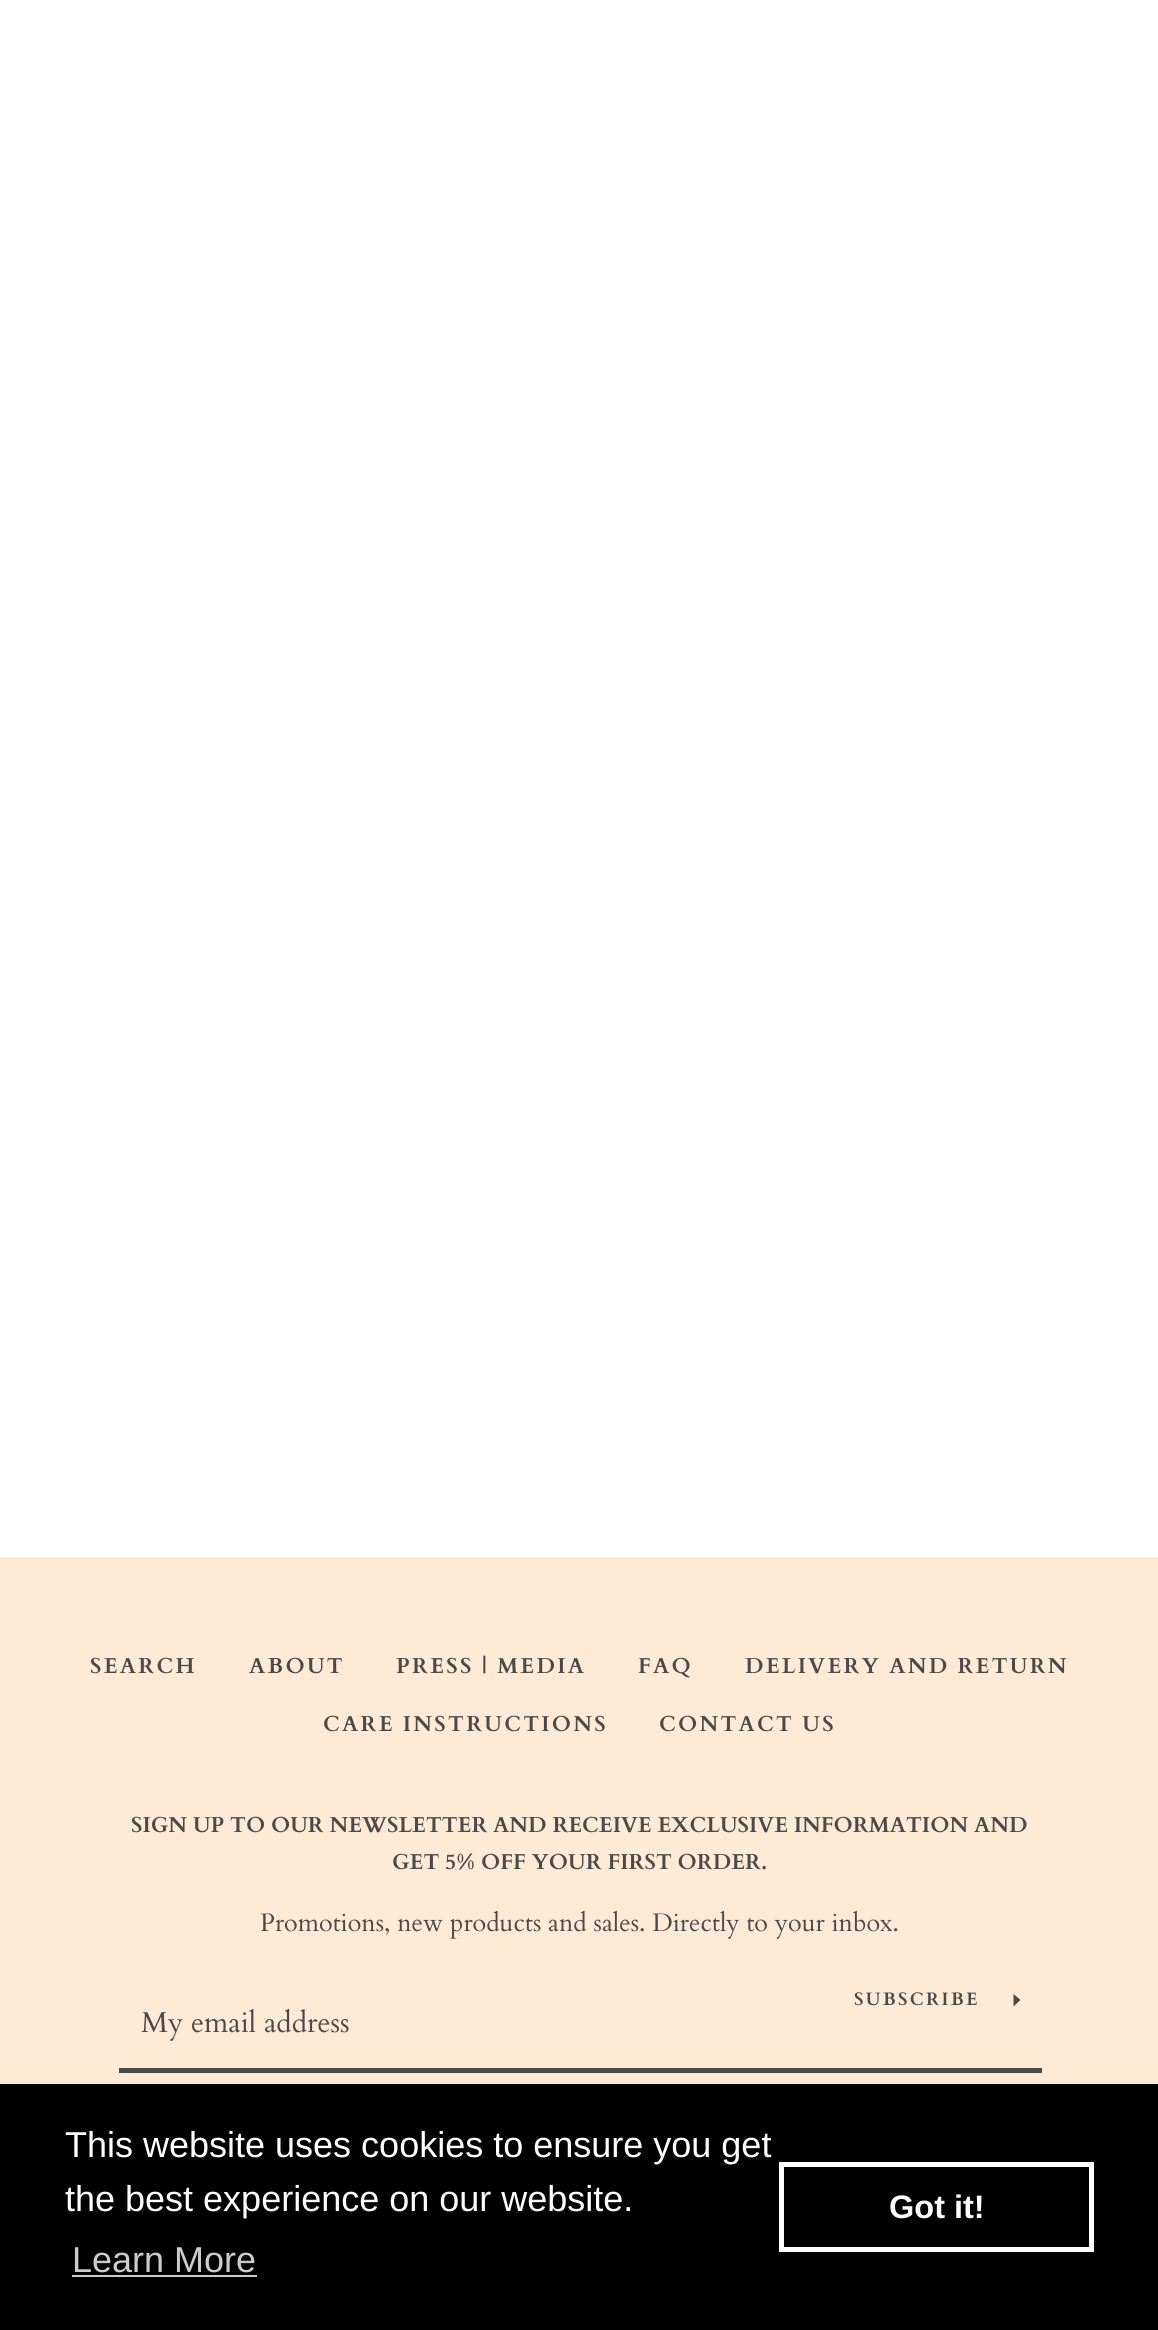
#include <cairo.h>
#include <math.h>
#include <stddef.h>


static void rgb(cairo_t *cr, int r, int g, int b)
{
	cairo_set_source_rgb(cr, r / 255.0, g / 255.0, b / 255.0);
}

static void face(cairo_t *cr, const char *family, double size, int italic, int bold)
{
	cairo_select_font_face(cr, family, italic ? CAIRO_FONT_SLANT_ITALIC : CAIRO_FONT_SLANT_NORMAL,
		bold ? CAIRO_FONT_WEIGHT_BOLD : CAIRO_FONT_WEIGHT_NORMAL);
	cairo_set_font_size(cr, size);
}

static void label(cairo_t *cr, double x, double y, const char *s)
{
	cairo_move_to(cr, x, y);
	cairo_show_text(cr, s);
}

static void tracked(cairo_t *cr, double x, double y, const char *s, double letter, double word)
{
	cairo_move_to(cr, x, y);
	while (*s) {
		char ch[5] = {0};
		int n = 0;
		do ch[n++] = *s++; while ((*s & 0xC0) == 0x80);
		cairo_show_text(cr, ch);
		cairo_rel_move_to(cr, letter + word * (*ch == ' '), 0);
	}
}

static void rect(cairo_t *cr, double x, double y, double w, double h)
{
	cairo_rectangle(cr, x, y, w, h);
	cairo_fill(cr);
}

static void draw(cairo_t *cr) {
	rgb(cr, 255, 255, 255);
	cairo_paint(cr);
	rgb(cr, 255, 234, 213);
	rect(cr, 0, 1557, 1158, 527);
	face(cr, "Cardo", 21.6, 0, 1);
	rgb(cr, 74, 74, 74);
	tracked(cr, 90, 1673, "SEARCH", 2.25, 0);
	tracked(cr, 249, 1673, "ABOUT", 2.25, 0);
	tracked(cr, 396, 1673, "PRESS | MEDIA", 2.25, 0);
	tracked(cr, 638, 1673, "FAQ", 2.25, 0);
	tracked(cr, 745, 1673, "DELIVERY AND RETURN", 2.25, 0);
	tracked(cr, 323, 1731, "CARE INSTRUCTIONS", 2.25, 0);
	tracked(cr, 659, 1731, "CONTACT US", 2.25, 0);
	label(cr, 131, 1832, "SIGN UP TO OUR NEWSLETTER AND RECEIVE EXCLUSIVE INFORMATION AND");
	label(cr, 392, 1869, "GET 5% OFF YOUR FIRST ORDER.");
	face(cr, "Cardo", 25.2, 0, 0);
	label(cr, 260, 1931, "Promotions, new products and sales. Directly to your inbox.");
	rect(cr, 119, 2068, 923, 5);
	face(cr, "Cardo", 18, 0, 1);
	tracked(cr, 854, 2005, "SUBSCRIBE", 2.25, 0);
	cairo_new_path(cr);
	cairo_move_to(cr, 1020.5, 2000);
	cairo_line_to(cr, 1013.5, 2006.5);
	cairo_line_to(cr, 1013.5, 1994);
	cairo_close_path(cr);
	cairo_fill(cr);
	face(cr, "Cardo", 28.75, 0, 0);
	label(cr, 141, 2032, "My email address");
	rgb(cr, 0, 0, 0);
	rect(cr, 0, 2084, 1158, 246);
	face(cr, "Liberation Sans", 36, 0, 0);
	rgb(cr, 255, 255, 255);
	label(cr, 65, 2157, "This website uses cookies to ensure you get");
	label(cr, 65, 2211, "the best experience on our website.");
	rgb(cr, 204, 204, 204);
	label(cr, 72, 2272, "Learn More");
	rect(cr, 72, 2275, 185, 2);
	cairo_rectangle(cr, 781.5, 2164.5, 310, 85);
	rgb(cr, 255, 255, 255);
	cairo_set_line_width(cr, 5);
	cairo_stroke(cr);
	face(cr, "Liberation Sans", 32.5, 0, 1);
	label(cr, 889, 2218, "Got it!");
}

int main(void) {
	cairo_surface_t *surface = cairo_image_surface_create(CAIRO_FORMAT_RGB24, 1158, 2330);
	cairo_t *cr = cairo_create(surface);
	cairo_font_options_t *options = cairo_font_options_create();
	cairo_font_options_set_hint_metrics(options, CAIRO_HINT_METRICS_OFF);
	cairo_font_options_set_hint_style(options, CAIRO_HINT_STYLE_NONE);
	cairo_set_font_options(cr, options);
	cairo_set_miter_limit(cr, 4);
	draw(cr);
	cairo_surface_write_to_png(surface, "render.png");
	cairo_font_options_destroy(options);
	cairo_destroy(cr);
	cairo_surface_destroy(surface);
	return 0;
}
